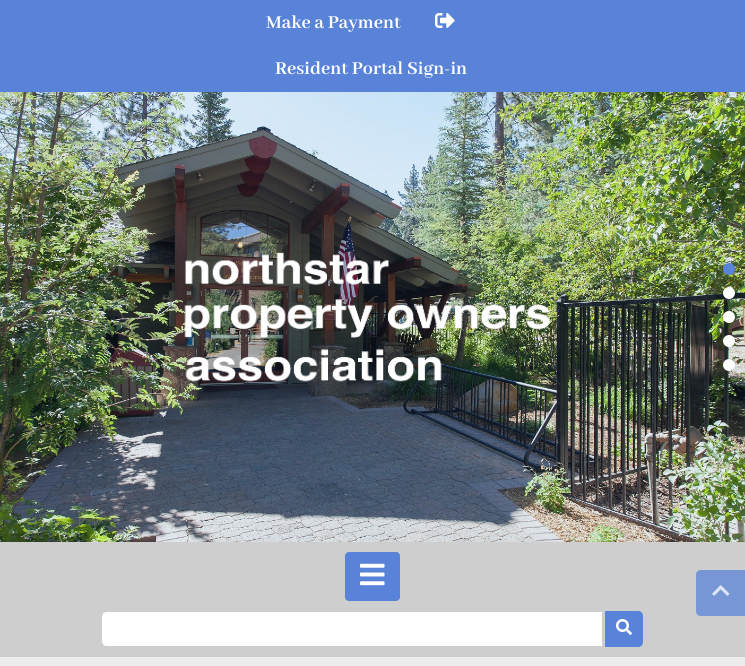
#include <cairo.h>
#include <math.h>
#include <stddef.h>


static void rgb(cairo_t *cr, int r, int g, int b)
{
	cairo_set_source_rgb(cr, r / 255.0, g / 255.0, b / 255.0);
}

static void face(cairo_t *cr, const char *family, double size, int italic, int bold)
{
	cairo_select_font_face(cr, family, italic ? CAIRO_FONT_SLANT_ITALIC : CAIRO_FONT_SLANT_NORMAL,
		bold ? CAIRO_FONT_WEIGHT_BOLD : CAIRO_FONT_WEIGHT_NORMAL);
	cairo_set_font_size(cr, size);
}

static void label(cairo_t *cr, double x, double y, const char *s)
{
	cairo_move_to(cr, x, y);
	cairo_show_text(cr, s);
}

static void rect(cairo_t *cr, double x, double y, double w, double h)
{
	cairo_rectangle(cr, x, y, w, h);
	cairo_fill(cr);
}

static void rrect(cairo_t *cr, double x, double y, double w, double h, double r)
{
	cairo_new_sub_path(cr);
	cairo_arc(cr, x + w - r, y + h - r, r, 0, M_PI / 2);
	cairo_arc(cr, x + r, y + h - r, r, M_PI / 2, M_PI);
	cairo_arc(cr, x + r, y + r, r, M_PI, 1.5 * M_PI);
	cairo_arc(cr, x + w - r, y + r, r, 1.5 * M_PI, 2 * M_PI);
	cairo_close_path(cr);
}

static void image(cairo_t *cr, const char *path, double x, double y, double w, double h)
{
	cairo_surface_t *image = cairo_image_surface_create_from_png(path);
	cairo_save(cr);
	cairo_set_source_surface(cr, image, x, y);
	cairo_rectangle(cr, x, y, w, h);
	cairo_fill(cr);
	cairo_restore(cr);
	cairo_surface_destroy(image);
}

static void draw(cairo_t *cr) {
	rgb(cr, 237, 237, 237);
	cairo_paint(cr);
	rgb(cr, 88, 131, 216);
	rect(cr, 0, 0, 745, 92);
	face(cr, "Abhaya Libre", 20, 0, 1);
	rgb(cr, 255, 255, 255);
	label(cr, 266, 28, "Make a Payment");
	image(cr, "image0.png", 435, 13, 20, 15);
	label(cr, 275, 74, "Resident Portal Sign-in");
	image(cr, "image1.png", 0, 92, 745, 450);
	image(cr, "image2.png", 184, 252, 366, 130);
	rgb(cr, 88, 131, 216);
	cairo_arc(cr, 729, 269, 6, 0, 2 * M_PI);
	cairo_fill(cr);
	rgb(cr, 255, 255, 255);
	cairo_arc(cr, 729, 293, 6, 0, 2 * M_PI);
	cairo_fill(cr);
	cairo_arc(cr, 729, 317, 6, 0, 2 * M_PI);
	cairo_fill(cr);
	cairo_arc(cr, 729, 341, 6, 0, 2 * M_PI);
	cairo_fill(cr);
	cairo_arc(cr, 729, 365, 6, 0, 2 * M_PI);
	cairo_fill(cr);
	rgb(cr, 206, 206, 206);
	rect(cr, 0, 542, 745, 115);
	rgb(cr, 88, 131, 216);
	rrect(cr, 345, 552, 55, 49, 4);
	cairo_fill(cr);
	image(cr, "image3.png", 360, 563, 25, 23);
	rgb(cr, 255, 255, 255);
	cairo_new_path(cr);
	cairo_move_to(cr, 107, 612);
	cairo_line_to(cr, 602, 612);
	cairo_line_to(cr, 602, 646);
	cairo_line_to(cr, 107, 646);
	cairo_curve_to(cr, 104, 646, 102, 644, 102, 641);
	cairo_line_to(cr, 102, 617);
	cairo_curve_to(cr, 102, 614, 104, 612, 107, 612);
	cairo_close_path(cr);
	cairo_fill(cr);
	rgb(cr, 88, 131, 216);
	cairo_new_path(cr);
	cairo_move_to(cr, 605, 611);
	cairo_line_to(cr, 638, 611);
	cairo_curve_to(cr, 641, 611, 643, 613, 643, 616);
	cairo_line_to(cr, 643, 642);
	cairo_curve_to(cr, 643, 645, 641, 647, 638, 647);
	cairo_line_to(cr, 605, 647);
	cairo_close_path(cr);
	cairo_fill(cr);
	image(cr, "image4.png", 616, 619, 16, 16);
	rgb(cr, 118, 150, 214);
	cairo_new_path(cr);
	cairo_move_to(cr, 701, 570);
	cairo_line_to(cr, 745, 570);
	cairo_line_to(cr, 745, 616);
	cairo_line_to(cr, 701, 616);
	cairo_curve_to(cr, 698, 616, 696, 614, 696, 611);
	cairo_line_to(cr, 696, 575);
	cairo_curve_to(cr, 696, 572, 698, 570, 701, 570);
	cairo_close_path(cr);
	cairo_fill(cr);
	image(cr, "image5.png", 712, 585, 18, 11);
}

int main(void) {
	cairo_surface_t *surface = cairo_image_surface_create(CAIRO_FORMAT_RGB24, 745, 666);
	cairo_t *cr = cairo_create(surface);
	cairo_font_options_t *options = cairo_font_options_create();
	cairo_font_options_set_hint_metrics(options, CAIRO_HINT_METRICS_OFF);
	cairo_font_options_set_hint_style(options, CAIRO_HINT_STYLE_NONE);
	cairo_set_font_options(cr, options);
	cairo_set_miter_limit(cr, 4);
	draw(cr);
	cairo_surface_write_to_png(surface, "render.png");
	cairo_font_options_destroy(options);
	cairo_destroy(cr);
	cairo_surface_destroy(surface);
	return 0;
}
